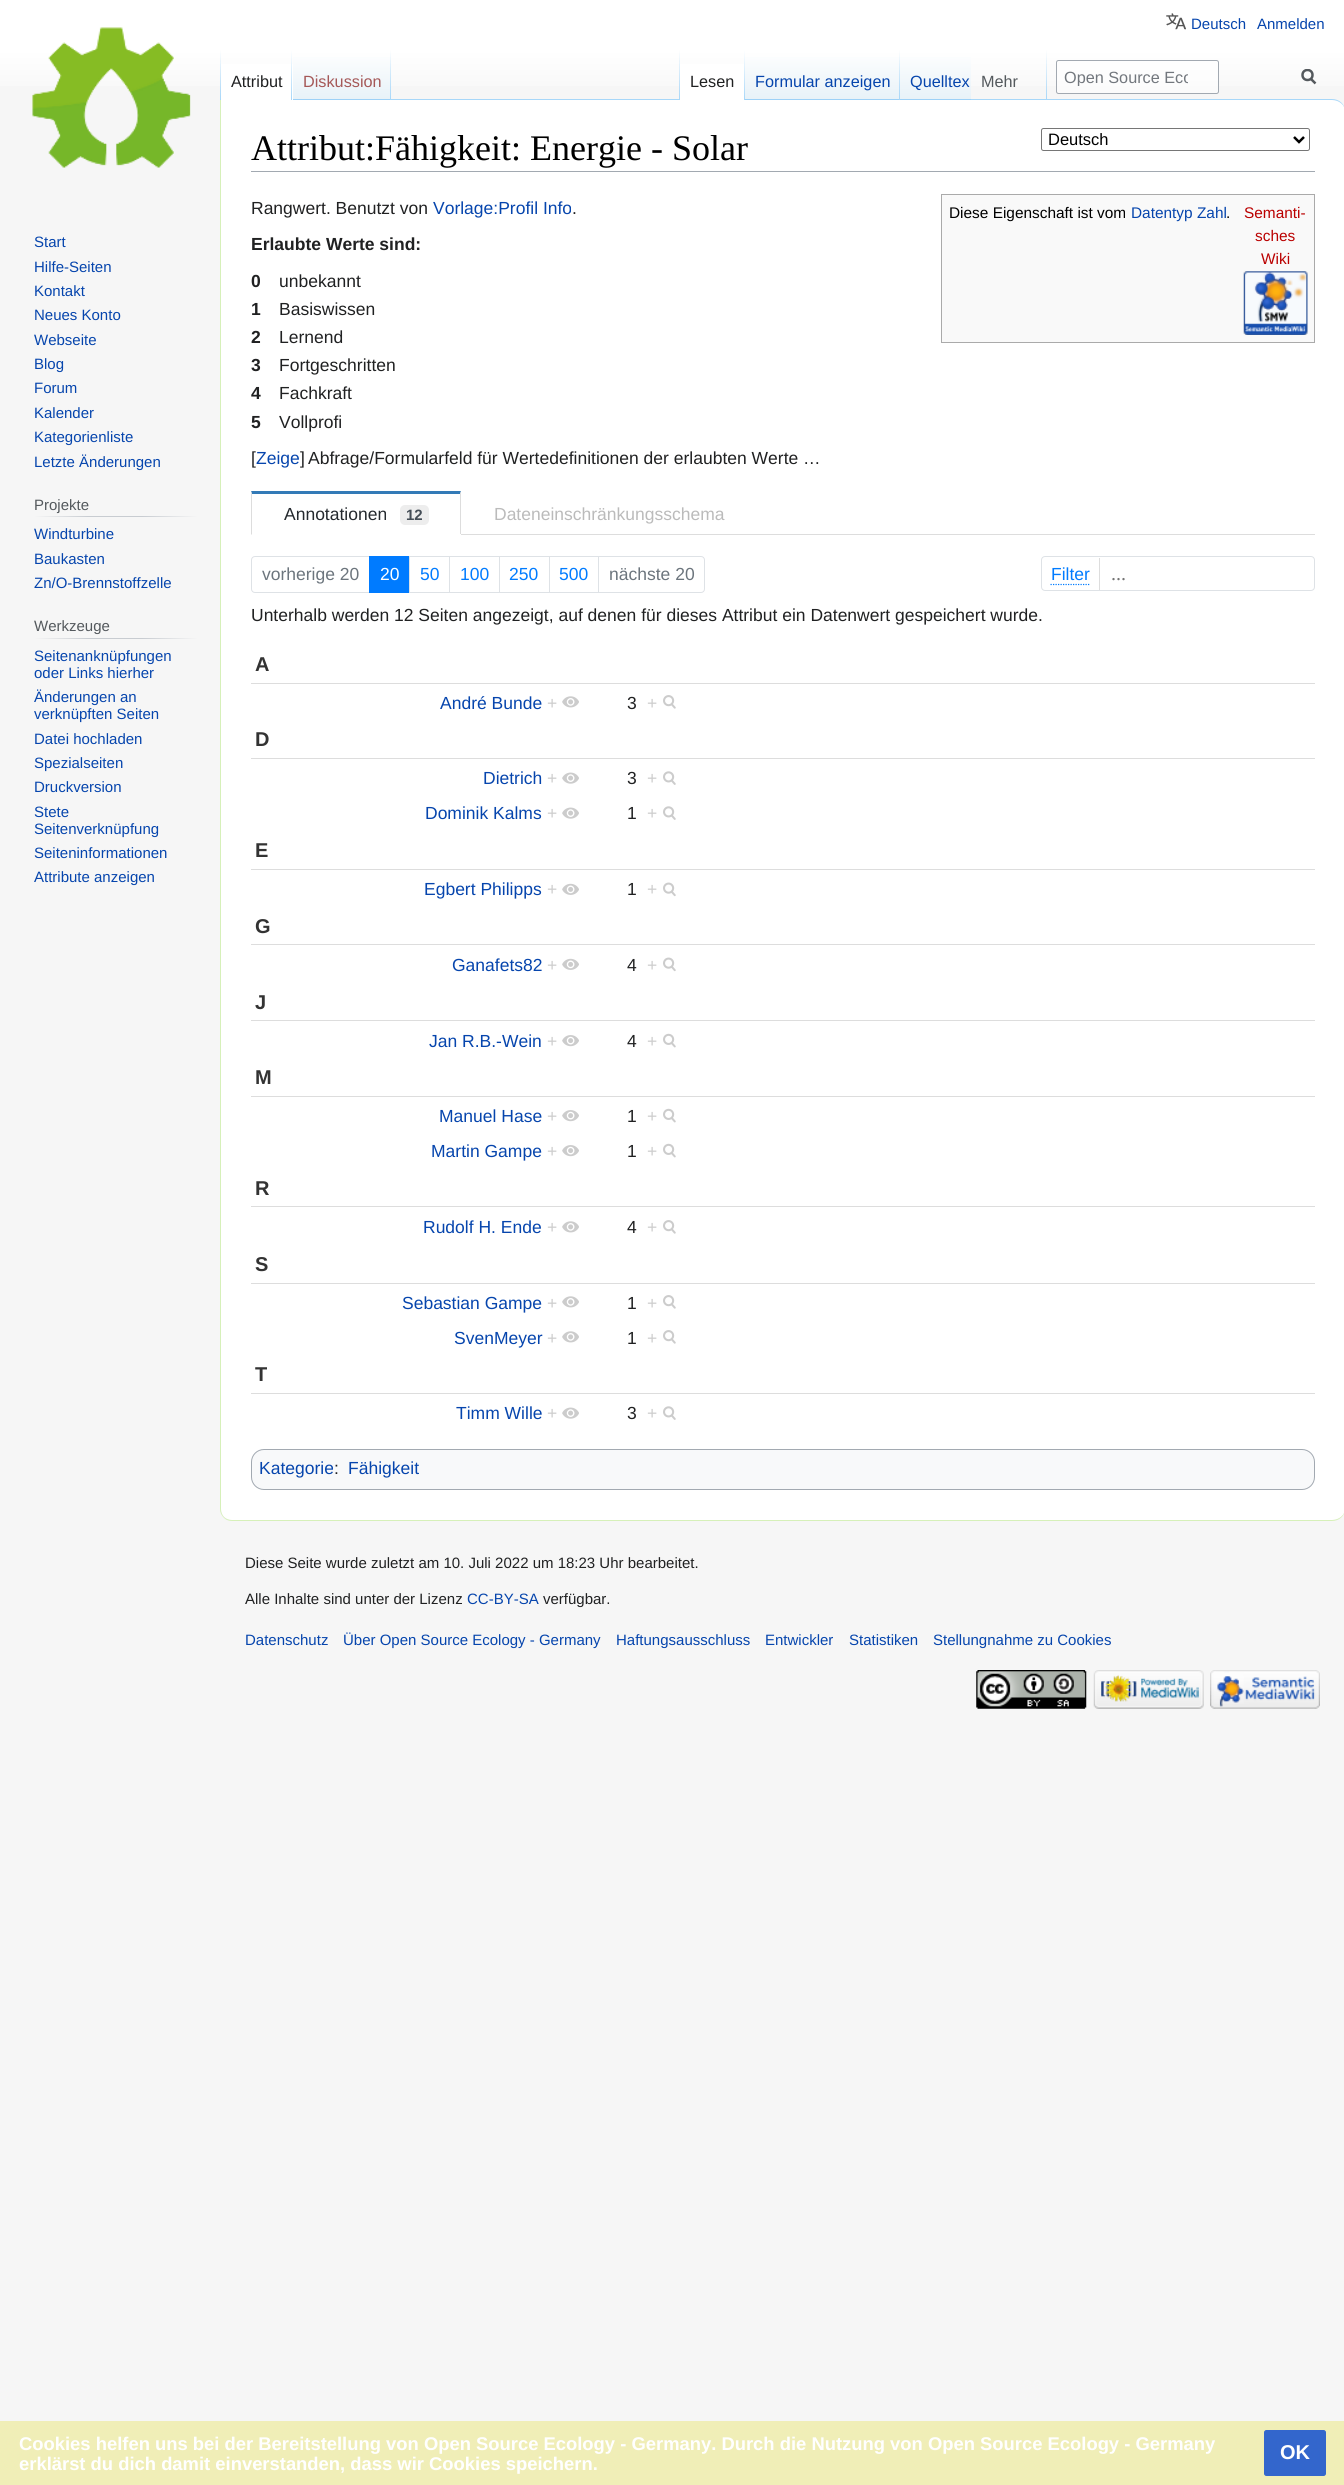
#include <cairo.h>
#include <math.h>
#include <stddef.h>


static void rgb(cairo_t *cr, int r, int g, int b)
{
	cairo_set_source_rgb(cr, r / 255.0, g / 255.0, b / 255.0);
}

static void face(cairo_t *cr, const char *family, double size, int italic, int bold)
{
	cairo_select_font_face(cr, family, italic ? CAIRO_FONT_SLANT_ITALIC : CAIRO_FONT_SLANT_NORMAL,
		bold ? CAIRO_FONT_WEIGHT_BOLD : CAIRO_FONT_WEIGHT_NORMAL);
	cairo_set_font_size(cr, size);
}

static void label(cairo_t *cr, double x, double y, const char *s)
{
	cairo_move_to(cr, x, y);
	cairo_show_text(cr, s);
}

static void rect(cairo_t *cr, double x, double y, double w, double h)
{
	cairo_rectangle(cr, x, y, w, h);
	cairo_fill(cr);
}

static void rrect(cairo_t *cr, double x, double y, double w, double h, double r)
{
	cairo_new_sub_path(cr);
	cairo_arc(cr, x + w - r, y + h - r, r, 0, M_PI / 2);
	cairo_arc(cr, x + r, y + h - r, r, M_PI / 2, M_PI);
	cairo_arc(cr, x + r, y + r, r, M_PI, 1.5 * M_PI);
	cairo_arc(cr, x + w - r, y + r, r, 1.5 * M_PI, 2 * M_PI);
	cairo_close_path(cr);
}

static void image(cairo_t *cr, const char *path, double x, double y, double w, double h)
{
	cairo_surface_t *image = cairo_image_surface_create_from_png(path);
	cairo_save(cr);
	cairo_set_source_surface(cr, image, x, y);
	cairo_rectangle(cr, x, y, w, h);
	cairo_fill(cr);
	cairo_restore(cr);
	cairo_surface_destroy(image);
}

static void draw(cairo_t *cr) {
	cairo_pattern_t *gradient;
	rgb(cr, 246, 246, 246);
	cairo_paint(cr);
	gradient = cairo_pattern_create_linear(673, 0, 673, 100);
	cairo_pattern_add_color_stop_rgba(gradient, 0.5, 1, 1, 1, 1);
	cairo_pattern_add_color_stop_rgba(gradient, 1, 0.965, 0.965, 0.965, 1);
	cairo_set_source(cr, gradient);
	cairo_pattern_destroy(gradient);
	rect(cr, 0, 0, 1344, 86);
	image(cr, "image0.png", 1166, 13, 20, 17);
	face(cr, "Liberation Sans", 15, 0, 0);
	rgb(cr, 6, 69, 173);
	label(cr, 1191, 29, "Deutsch");
	label(cr, 1257, 29, "Anmelden");
	rgb(cr, 255, 255, 255);
	cairo_new_path(cr);
	cairo_move_to(cr, 221, 100);
	cairo_line_to(cr, 1332, 100);
	cairo_curve_to(cr, 1339, 100, 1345, 105, 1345, 111);
	cairo_line_to(cr, 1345, 1509);
	cairo_curve_to(cr, 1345, 1515, 1339, 1520, 1332, 1520);
	cairo_line_to(cr, 232, 1520);
	cairo_curve_to(cr, 226, 1520, 221, 1515, 221, 1509);
	cairo_close_path(cr);
	cairo_fill(cr);
	rgb(cr, 167, 215, 249);
	cairo_new_path(cr);
	cairo_move_to(cr, 221, 100);
	cairo_line_to(cr, 220, 99);
	cairo_line_to(cr, 1332, 99);
	cairo_curve_to(cr, 1339, 99, 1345, 104, 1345, 111);
	cairo_curve_to(cr, 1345, 105, 1339, 100, 1332, 100);
	cairo_close_path(cr);
	cairo_fill(cr);
	rgb(cr, 214, 240, 185);
	cairo_new_path(cr);
	cairo_move_to(cr, 220, 99);
	cairo_line_to(cr, 221, 100);
	cairo_line_to(cr, 221, 1509);
	cairo_curve_to(cr, 221, 1512, 222, 1515, 224, 1517);
	cairo_line_to(cr, 224, 1518);
	cairo_curve_to(cr, 221, 1515, 220, 1512, 220, 1509);
	cairo_close_path(cr);
	cairo_fill(cr);
	gradient = cairo_pattern_create_linear(221, 50, 221, 100);
	cairo_pattern_add_color_stop_rgba(gradient, 0, 0.655, 0.843, 0.976, 0);
	cairo_pattern_add_color_stop_rgba(gradient, 1, 0.655, 0.843, 0.976, 1);
	cairo_set_source(cr, gradient);
	cairo_pattern_destroy(gradient);
	rect(cr, 220, 50, 1, 50);
	rgb(cr, 255, 255, 255);
	rect(cr, 221, 64, 72, 36);
	gradient = cairo_pattern_create_linear(292, 50, 292, 100);
	cairo_pattern_add_color_stop_rgba(gradient, 0, 1, 1, 1, 1);
	cairo_pattern_add_color_stop_rgba(gradient, 1, 0.655, 0.843, 0.976, 1);
	cairo_set_source(cr, gradient);
	cairo_pattern_destroy(gradient);
	rect(cr, 291, 50, 1, 50);
	face(cr, "Liberation Sans", 16.25, 0, 0);
	rgb(cr, 32, 33, 34);
	label(cr, 231, 87, "Attribut");
	gradient = cairo_pattern_create_linear(342, 100, 342, 50);
	cairo_pattern_add_color_stop_rgba(gradient, 0, 0.467, 0.757, 0.965, 1);
	cairo_pattern_add_color_stop_rgba(gradient, 0.03, 0.91, 0.949, 0.973, 1);
	cairo_pattern_add_color_stop_rgba(gradient, 1, 1, 1, 1, 1);
	cairo_set_source(cr, gradient);
	cairo_pattern_destroy(gradient);
	rect(cr, 293, 57, 98, 43);
	gradient = cairo_pattern_create_linear(391, 50, 391, 100);
	cairo_pattern_add_color_stop_rgba(gradient, 0, 0.655, 0.843, 0.976, 0);
	cairo_pattern_add_color_stop_rgba(gradient, 1, 0.655, 0.843, 0.976, 1);
	cairo_set_source(cr, gradient);
	cairo_pattern_destroy(gradient);
	rect(cr, 390, 50, 1, 50);
	rgb(cr, 165, 88, 88);
	label(cr, 303, 87, "Diskussion");
	gradient = cairo_pattern_create_linear(679, 50, 679, 100);
	cairo_pattern_add_color_stop_rgba(gradient, 0, 0.655, 0.843, 0.976, 0);
	cairo_pattern_add_color_stop_rgba(gradient, 1, 0.655, 0.843, 0.976, 1);
	cairo_set_source(cr, gradient);
	cairo_pattern_destroy(gradient);
	rect(cr, 679, 50, 1, 50);
	rgb(cr, 255, 255, 255);
	rect(cr, 680, 64, 64, 36);
	gradient = cairo_pattern_create_linear(744, 50, 744, 100);
	cairo_pattern_add_color_stop_rgba(gradient, 0, 1, 1, 1, 1);
	cairo_pattern_add_color_stop_rgba(gradient, 1, 0.655, 0.843, 0.976, 1);
	cairo_set_source(cr, gradient);
	cairo_pattern_destroy(gradient);
	rect(cr, 744, 50, 1, 50);
	rgb(cr, 32, 33, 34);
	label(cr, 690, 87, "Lesen");
	gradient = cairo_pattern_create_linear(823, 100, 823, 50);
	cairo_pattern_add_color_stop_rgba(gradient, 0, 0.467, 0.757, 0.965, 1);
	cairo_pattern_add_color_stop_rgba(gradient, 0.03, 0.91, 0.949, 0.973, 1);
	cairo_pattern_add_color_stop_rgba(gradient, 1, 1, 1, 1, 1);
	cairo_set_source(cr, gradient);
	cairo_pattern_destroy(gradient);
	rect(cr, 745, 57, 155, 43);
	gradient = cairo_pattern_create_linear(899, 50, 899, 100);
	cairo_pattern_add_color_stop_rgba(gradient, 0, 0.655, 0.843, 0.976, 0);
	cairo_pattern_add_color_stop_rgba(gradient, 1, 0.655, 0.843, 0.976, 1);
	cairo_set_source(cr, gradient);
	cairo_pattern_destroy(gradient);
	rect(cr, 899, 50, 1, 50);
	rgb(cr, 6, 69, 173);
	label(cr, 755, 87, "Formular anzeigen");
	gradient = cairo_pattern_create_linear(936, 100, 936, 50);
	cairo_pattern_add_color_stop_rgba(gradient, 0, 0.467, 0.757, 0.965, 1);
	cairo_pattern_add_color_stop_rgba(gradient, 0.03, 0.91, 0.949, 0.973, 1);
	cairo_pattern_add_color_stop_rgba(gradient, 1, 1, 1, 1, 1);
	cairo_set_source(cr, gradient);
	cairo_pattern_destroy(gradient);
	rect(cr, 900, 57, 71, 43);
	rgb(cr, 6, 69, 173);
	label(cr, 910, 87, "Quelltex");
	gradient = cairo_pattern_create_linear(1047, 50, 1047, 100);
	cairo_pattern_add_color_stop_rgba(gradient, 0, 0.655, 0.843, 0.976, 0);
	cairo_pattern_add_color_stop_rgba(gradient, 1, 0.655, 0.843, 0.976, 1);
	cairo_set_source(cr, gradient);
	cairo_pattern_destroy(gradient);
	rect(cr, 1046, 50, 1, 50);
	rgb(cr, 84, 89, 93);
	label(cr, 981, 87, "Mehr");
	cairo_set_source_rgba(cr, 1, 1, 1, 0.5);
	rrect(cr, 1056.5, 60.5, 162, 33, 2);
	cairo_fill_preserve(cr);
	rgb(cr, 162, 169, 177);
	cairo_set_line_width(cr, 1);
	cairo_stroke(cr);
	cairo_save(cr);
	cairo_rectangle(cr, 1064, 68, 124, 18);
	cairo_clip(cr);
	rgb(cr, 114, 119, 125);
	label(cr, 1064, 83, "Open Source Eco");
	cairo_restore(cr);
	cairo_new_path(cr);
	cairo_move_to(cr, 1315.5, 83.5);
	cairo_line_to(cr, 1310.5, 78.5);
	rgb(cr, 84, 89, 93);
	cairo_set_line_width(cr, 2.5);
	cairo_stroke(cr);
	cairo_save(cr);
	cairo_rectangle(cr, 1301, 69, 15, 16);
	cairo_clip(cr);
	cairo_arc(cr, 1307.5, 75, 5, 0, 2 * M_PI);
	cairo_stroke(cr);
	cairo_restore(cr);
	image(cr, "image1.png", 32, 27, 159, 141);
	face(cr, "Liberation Sans", 15, 0, 0);
	rgb(cr, 6, 69, 173);
	label(cr, 34, 247, "Start");
	label(cr, 34, 272, "Hilfe-Seiten");
	label(cr, 34, 296, "Kontakt");
	label(cr, 34, 320, "Neues Konto");
	label(cr, 34, 345, "Webseite");
	label(cr, 34, 369, "Blog");
	label(cr, 34, 393, "Forum");
	label(cr, 34, 418, "Kalender");
	label(cr, 34, 442, "Kategorienliste");
	label(cr, 34, 467, "Letzte Änderungen");
	gradient = cairo_pattern_create_linear(34, 517, 198, 517);
	cairo_pattern_add_color_stop_rgba(gradient, 0, 0.965, 0.965, 0.965, 1);
	cairo_pattern_add_color_stop_rgba(gradient, 0.33, 0.784, 0.8, 0.82, 1);
	cairo_pattern_add_color_stop_rgba(gradient, 0.66, 0.784, 0.8, 0.82, 1);
	cairo_pattern_add_color_stop_rgba(gradient, 1, 0.965, 0.965, 0.965, 1);
	cairo_set_source(cr, gradient);
	cairo_pattern_destroy(gradient);
	rect(cr, 34, 516, 164, 1);
	rgb(cr, 84, 89, 93);
	label(cr, 34, 510, "Projekte");
	rgb(cr, 6, 69, 173);
	label(cr, 34, 539, "Windturbine");
	label(cr, 34, 564, "Baukasten");
	label(cr, 34, 588, "Zn/O-Brennstoffzelle");
	gradient = cairo_pattern_create_linear(34, 638, 198, 638);
	cairo_pattern_add_color_stop_rgba(gradient, 0, 0.965, 0.965, 0.965, 1);
	cairo_pattern_add_color_stop_rgba(gradient, 0.33, 0.784, 0.8, 0.82, 1);
	cairo_pattern_add_color_stop_rgba(gradient, 0.66, 0.784, 0.8, 0.82, 1);
	cairo_pattern_add_color_stop_rgba(gradient, 1, 0.965, 0.965, 0.965, 1);
	cairo_set_source(cr, gradient);
	cairo_pattern_destroy(gradient);
	rect(cr, 34, 638, 164, 1);
	rgb(cr, 84, 89, 93);
	label(cr, 34, 631, "Werkzeuge");
	rgb(cr, 6, 69, 173);
	label(cr, 34, 661, "Seitenanknüpfungen");
	label(cr, 34, 678, "oder Links hierher");
	label(cr, 34, 702, "Änderungen an");
	label(cr, 34, 719, "verknüpften Seiten");
	label(cr, 34, 744, "Datei hochladen");
	label(cr, 34, 768, "Spezialseiten");
	label(cr, 34, 792, "Druckversion");
	label(cr, 34, 817, "Stete");
	label(cr, 34, 834, "Seitenverknüpfung");
	label(cr, 34, 858, "Seiteninformationen");
	label(cr, 34, 882, "Attribute anzeigen");
	rgb(cr, 214, 240, 185);
	cairo_new_path(cr);
	cairo_move_to(cr, 224, 1518);
	cairo_line_to(cr, 224, 1517);
	cairo_curve_to(cr, 226, 1519, 229, 1520, 232, 1520);
	cairo_line_to(cr, 1332, 1520);
	cairo_curve_to(cr, 1339, 1520, 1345, 1515, 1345, 1509);
	cairo_curve_to(cr, 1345, 1516, 1339, 1521, 1332, 1521);
	cairo_line_to(cr, 232, 1521);
	cairo_curve_to(cr, 229, 1521, 226, 1520, 224, 1518);
	cairo_close_path(cr);
	cairo_fill(cr);
	rgb(cr, 162, 169, 177);
	rect(cr, 251, 171, 1064, 1);
	face(cr, "Liberation Serif", 36, 0, 0);
	rgb(cr, 0, 0, 0);
	label(cr, 251, 160, "Attribut:Fähigkeit: Energie - Solar");
	rrect(cr, 1041.5, 128.5, 268, 22, 2);
	rgb(cr, 118, 118, 118);
	cairo_set_line_width(cr, 1);
	cairo_stroke(cr);
	cairo_new_path(cr);
	cairo_move_to(cr, 1294, 137);
	cairo_line_to(cr, 1299, 142);
	cairo_line_to(cr, 1304, 137);
	rgb(cr, 0, 0, 0);
	cairo_set_line_width(cr, 2.5);
	cairo_stroke(cr);
	face(cr, "Liberation Sans", 16.5, 0, 0);
	label(cr, 1048, 145, "Deutsch");
	face(cr, "Liberation Sans", 17.5, 0, 0);
	rgb(cr, 32, 33, 34);
	label(cr, 251, 214, "Rangwert. Benutzt von");
	rgb(cr, 6, 69, 173);
	label(cr, 433, 214, "Vorlage:Profil Info");
	rgb(cr, 32, 33, 34);
	label(cr, 572, 214, ".");
	rgb(cr, 249, 249, 249);
	cairo_rectangle(cr, 941.5, 194.5, 373, 148);
	cairo_fill_preserve(cr);
	rgb(cr, 170, 170, 170);
	cairo_set_line_width(cr, 1);
	cairo_stroke(cr);
	face(cr, "Liberation Sans", 15.4, 0, 0);
	rgb(cr, 0, 0, 0);
	label(cr, 949, 218, "Diese Eigenschaft ist vom");
	rgb(cr, 6, 69, 173);
	label(cr, 1131, 218, "Datentyp Zahl");
	rgb(cr, 0, 0, 0);
	label(cr, 1226, 218, ".");
	rgb(cr, 186, 0, 0);
	label(cr, 1244, 218, "Semanti-");
	label(cr, 1255, 241, "sches");
	label(cr, 1261, 264, "Wiki");
	image(cr, "image2.png", 1243, 271, 65, 64);
	face(cr, "Liberation Sans", 17.5, 0, 1);
	rgb(cr, 32, 33, 34);
	label(cr, 251, 250, "Erlaubte Werte sind:");
	label(cr, 251, 287, "0");
	face(cr, "Liberation Sans", 17.5, 0, 0);
	label(cr, 279, 287, "unbekannt");
	face(cr, "Liberation Sans", 17.5, 0, 1);
	label(cr, 251, 315, "1");
	face(cr, "Liberation Sans", 17.5, 0, 0);
	label(cr, 279, 315, "Basiswissen");
	face(cr, "Liberation Sans", 17.5, 0, 1);
	label(cr, 251, 343, "2");
	face(cr, "Liberation Sans", 17.5, 0, 0);
	label(cr, 279, 343, "Lernend");
	face(cr, "Liberation Sans", 17.5, 0, 1);
	label(cr, 251, 371, "3");
	face(cr, "Liberation Sans", 17.5, 0, 0);
	label(cr, 279, 371, "Fortgeschritten");
	face(cr, "Liberation Sans", 17.5, 0, 1);
	label(cr, 251, 399, "4");
	face(cr, "Liberation Sans", 17.5, 0, 0);
	label(cr, 279, 399, "Fachkraft");
	face(cr, "Liberation Sans", 17.5, 0, 1);
	label(cr, 251, 428, "5");
	face(cr, "Liberation Sans", 17.5, 0, 0);
	label(cr, 279, 428, "Vollprofi");
	label(cr, 251, 464, "[");
	rgb(cr, 6, 69, 173);
	label(cr, 256, 464, "Zeige");
	rgb(cr, 32, 33, 34);
	label(cr, 300, 464, "]");
	label(cr, 308, 464, "Abfrage/Formularfeld für Wertedefinitionen der erlaubten Werte …");
	rgb(cr, 51, 122, 183);
	cairo_new_path(cr);
	cairo_move_to(cr, 251, 491);
	cairo_line_to(cr, 461, 491);
	cairo_line_to(cr, 460, 494);
	cairo_line_to(cr, 252, 494);
	cairo_close_path(cr);
	cairo_fill(cr);
	rgb(cr, 221, 221, 221);
	cairo_new_path(cr);
	cairo_move_to(cr, 461, 491);
	cairo_line_to(cr, 461, 535);
	cairo_line_to(cr, 460, 534);
	cairo_line_to(cr, 460, 494);
	cairo_close_path(cr);
	cairo_fill(cr);
	rgb(cr, 255, 255, 255);
	rect(cr, 460, 534, 1, 1);
	rgb(cr, 221, 221, 221);
	cairo_new_path(cr);
	cairo_move_to(cr, 251, 535);
	cairo_line_to(cr, 251, 491);
	cairo_line_to(cr, 252, 494);
	cairo_line_to(cr, 252, 534);
	cairo_close_path(cr);
	cairo_fill(cr);
	rgb(cr, 36, 41, 46);
	label(cr, 284, 520, "Annotationen");
	rgb(cr, 237, 237, 237);
	rrect(cr, 400, 505, 29, 20, 5);
	cairo_fill(cr);
	face(cr, "Liberation Sans", 15, 0, 1);
	rgb(cr, 68, 77, 86);
	label(cr, 406, 520, "12");
	face(cr, "Liberation Sans", 17.5, 0, 0);
	rgb(cr, 187, 187, 187);
	label(cr, 494, 520, "Dateneinschränkungsschema");
	rgb(cr, 221, 221, 221);
	rect(cr, 461, 534, 854, 1);
	cairo_new_path(cr);
	cairo_move_to(cr, 255, 556.5);
	cairo_line_to(cr, 369.5, 556.5);
	cairo_line_to(cr, 369.5, 592.5);
	cairo_line_to(cr, 255, 592.5);
	cairo_curve_to(cr, 253, 592.5, 251.5, 591, 251.5, 589);
	cairo_line_to(cr, 251.5, 560);
	cairo_curve_to(cr, 251.5, 558, 253, 556.5, 255, 556.5);
	cairo_close_path(cr);
	rgb(cr, 222, 226, 230);
	cairo_stroke(cr);
	rgb(cr, 108, 117, 125);
	label(cr, 262, 580, "vorherige 20");
	rgb(cr, 0, 123, 255);
	rect(cr, 369, 556, 40, 37);
	rgb(cr, 255, 255, 255);
	label(cr, 380, 580, "20");
	cairo_rectangle(cr, 409.5, 556.5, 40, 36);
	rgb(cr, 222, 226, 230);
	cairo_stroke(cr);
	rgb(cr, 0, 123, 255);
	label(cr, 420, 580, "50");
	cairo_rectangle(cr, 449.5, 556.5, 50, 36);
	rgb(cr, 222, 226, 230);
	cairo_stroke(cr);
	rgb(cr, 0, 123, 255);
	label(cr, 460, 580, "100");
	cairo_rectangle(cr, 499.5, 556.5, 50, 36);
	rgb(cr, 222, 226, 230);
	cairo_stroke(cr);
	rgb(cr, 0, 123, 255);
	label(cr, 509, 580, "250");
	cairo_rectangle(cr, 549.5, 556.5, 49, 36);
	rgb(cr, 222, 226, 230);
	cairo_stroke(cr);
	rgb(cr, 0, 123, 255);
	label(cr, 559, 580, "500");
	rgb(cr, 255, 255, 255);
	cairo_new_path(cr);
	cairo_move_to(cr, 598.5, 556.5);
	cairo_line_to(cr, 701, 556.5);
	cairo_curve_to(cr, 703, 556.5, 704.5, 558, 704.5, 560);
	cairo_line_to(cr, 704.5, 589);
	cairo_curve_to(cr, 704.5, 591, 703, 592.5, 701, 592.5);
	cairo_line_to(cr, 598.5, 592.5);
	cairo_close_path(cr);
	cairo_fill_preserve(cr);
	rgb(cr, 222, 226, 230);
	cairo_stroke(cr);
	rgb(cr, 108, 117, 125);
	label(cr, 609, 580, "nächste 20");
	rrect(cr, 1041.5, 556.5, 273, 34, 3.5);
	rgb(cr, 222, 226, 230);
	cairo_stroke(cr);
	rgb(cr, 0, 123, 255);
	label(cr, 1051, 580, "Filter");
	cairo_new_path(cr);
	cairo_move_to(cr, 1050.5, 584.5);
	cairo_line_to(cr, 1089.5, 584.5);
	cairo_set_line_width(cr, 1.2);
	cairo_set_dash(cr, (double[]){1.25, 1.25}, 2, 0);
	cairo_stroke(cr);
	rgb(cr, 221, 221, 221);
	rect(cr, 1099, 558, 1, 32);
	face(cr, "Liberation Serif", 20, 0, 0);
	rgb(cr, 117, 117, 117);
	label(cr, 1111, 580, "...");
	face(cr, "Liberation Sans", 17.5, 0, 0);
	rgb(cr, 32, 33, 34);
	label(cr, 251, 621, "Unterhalb werden 12 Seiten angezeigt, auf denen für dieses Attribut ein Datenwert gespeichert wurde.");
	rgb(cr, 221, 221, 221);
	rect(cr, 251, 683, 1064, 1);
	face(cr, "Liberation Sans", 20, 0, 1);
	rgb(cr, 51, 51, 51);
	label(cr, 255, 671, "A");
	face(cr, "Liberation Sans", 17.5, 0, 0);
	rgb(cr, 6, 69, 173);
	label(cr, 440, 709, "André Bunde");
	rgb(cr, 204, 204, 204);
	label(cr, 547, 709, "+");
	image(cr, "image3.png", 562, 696, 17, 12);
	rgb(cr, 32, 33, 34);
	label(cr, 627, 709, "3");
	rgb(cr, 204, 204, 204);
	label(cr, 647, 709, "+");
	image(cr, "image4.png", 663, 695, 13, 14);
	rgb(cr, 221, 221, 221);
	rect(cr, 251, 758, 1064, 1);
	face(cr, "Liberation Sans", 20, 0, 1);
	rgb(cr, 51, 51, 51);
	label(cr, 255, 746, "D");
	face(cr, "Liberation Sans", 17.5, 0, 0);
	rgb(cr, 6, 69, 173);
	label(cr, 483, 784, "Dietrich");
	rgb(cr, 204, 204, 204);
	label(cr, 547, 784, "+");
	image(cr, "image5.png", 562, 772, 17, 12);
	rgb(cr, 32, 33, 34);
	label(cr, 627, 784, "3");
	rgb(cr, 204, 204, 204);
	label(cr, 647, 784, "+");
	image(cr, "image6.png", 663, 771, 13, 14);
	rgb(cr, 6, 69, 173);
	label(cr, 425, 819, "Dominik Kalms");
	rgb(cr, 204, 204, 204);
	label(cr, 547, 819, "+");
	image(cr, "image5.png", 562, 807, 17, 12);
	rgb(cr, 32, 33, 34);
	label(cr, 627, 819, "1");
	rgb(cr, 204, 204, 204);
	label(cr, 647, 819, "+");
	image(cr, "image6.png", 663, 806, 13, 14);
	rgb(cr, 221, 221, 221);
	rect(cr, 251, 869, 1064, 1);
	face(cr, "Liberation Sans", 20, 0, 1);
	rgb(cr, 51, 51, 51);
	label(cr, 255, 857, "E");
	face(cr, "Liberation Sans", 17.5, 0, 0);
	rgb(cr, 6, 69, 173);
	label(cr, 424, 895, "Egbert Philipps");
	rgb(cr, 204, 204, 204);
	label(cr, 547, 895, "+");
	image(cr, "image7.png", 562, 883, 17, 12);
	rgb(cr, 32, 33, 34);
	label(cr, 627, 895, "1");
	rgb(cr, 204, 204, 204);
	label(cr, 647, 895, "+");
	image(cr, "image8.png", 663, 882, 13, 15);
	rgb(cr, 221, 221, 221);
	rect(cr, 251, 944, 1064, 1);
	face(cr, "Liberation Sans", 20, 0, 1);
	rgb(cr, 51, 51, 51);
	label(cr, 255, 933, "G");
	face(cr, "Liberation Sans", 17.5, 0, 0);
	rgb(cr, 6, 69, 173);
	label(cr, 452, 971, "Ganafets82");
	rgb(cr, 204, 204, 204);
	label(cr, 547, 971, "+");
	image(cr, "image7.png", 562, 958, 17, 12);
	rgb(cr, 32, 33, 34);
	label(cr, 627, 971, "4");
	rgb(cr, 204, 204, 204);
	label(cr, 647, 971, "+");
	image(cr, "image8.png", 663, 957, 13, 15);
	rgb(cr, 221, 221, 221);
	rect(cr, 251, 1020, 1064, 1);
	face(cr, "Liberation Sans", 20, 0, 1);
	rgb(cr, 51, 51, 51);
	label(cr, 255, 1009, "J");
	face(cr, "Liberation Sans", 17.5, 0, 0);
	rgb(cr, 6, 69, 173);
	label(cr, 429, 1047, "Jan R.B.-Wein");
	rgb(cr, 204, 204, 204);
	label(cr, 547, 1047, "+");
	image(cr, "image9.png", 562, 1035, 17, 12);
	rgb(cr, 32, 33, 34);
	label(cr, 627, 1047, "4");
	rgb(cr, 204, 204, 204);
	label(cr, 647, 1047, "+");
	image(cr, "image10.png", 663, 1033, 13, 15);
	rgb(cr, 221, 221, 221);
	rect(cr, 251, 1096, 1064, 1);
	face(cr, "Liberation Sans", 20, 0, 1);
	rgb(cr, 51, 51, 51);
	label(cr, 255, 1084, "M");
	face(cr, "Liberation Sans", 17.5, 0, 0);
	rgb(cr, 6, 69, 173);
	label(cr, 439, 1122, "Manuel Hase");
	rgb(cr, 204, 204, 204);
	label(cr, 547, 1122, "+");
	image(cr, "image9.png", 562, 1110, 17, 12);
	rgb(cr, 32, 33, 34);
	label(cr, 627, 1122, "1");
	rgb(cr, 204, 204, 204);
	label(cr, 647, 1122, "+");
	image(cr, "image10.png", 663, 1108, 13, 15);
	rgb(cr, 6, 69, 173);
	label(cr, 431, 1157, "Martin Gampe");
	rgb(cr, 204, 204, 204);
	label(cr, 547, 1157, "+");
	image(cr, "image9.png", 562, 1145, 17, 12);
	rgb(cr, 32, 33, 34);
	label(cr, 627, 1157, "1");
	rgb(cr, 204, 204, 204);
	label(cr, 647, 1157, "+");
	image(cr, "image10.png", 663, 1143, 13, 15);
	rgb(cr, 221, 221, 221);
	rect(cr, 251, 1206, 1064, 1);
	face(cr, "Liberation Sans", 20, 0, 1);
	rgb(cr, 51, 51, 51);
	label(cr, 255, 1195, "R");
	face(cr, "Liberation Sans", 17.5, 0, 0);
	rgb(cr, 6, 69, 173);
	label(cr, 423, 1233, "Rudolf H. Ende");
	rgb(cr, 204, 204, 204);
	label(cr, 547, 1233, "+");
	image(cr, "image3.png", 562, 1221, 17, 12);
	rgb(cr, 32, 33, 34);
	label(cr, 627, 1233, "4");
	rgb(cr, 204, 204, 204);
	label(cr, 647, 1233, "+");
	image(cr, "image4.png", 663, 1220, 13, 14);
	rgb(cr, 221, 221, 221);
	rect(cr, 251, 1283, 1064, 1);
	face(cr, "Liberation Sans", 20, 0, 1);
	rgb(cr, 51, 51, 51);
	label(cr, 255, 1271, "S");
	face(cr, "Liberation Sans", 17.5, 0, 0);
	rgb(cr, 6, 69, 173);
	label(cr, 402, 1309, "Sebastian Gampe");
	rgb(cr, 204, 204, 204);
	label(cr, 547, 1309, "+");
	image(cr, "image3.png", 562, 1296, 17, 12);
	rgb(cr, 32, 33, 34);
	label(cr, 627, 1309, "1");
	rgb(cr, 204, 204, 204);
	label(cr, 647, 1309, "+");
	image(cr, "image4.png", 663, 1295, 13, 14);
	rgb(cr, 6, 69, 173);
	label(cr, 454, 1344, "SvenMeyer");
	rgb(cr, 204, 204, 204);
	label(cr, 547, 1344, "+");
	image(cr, "image3.png", 562, 1331, 17, 12);
	rgb(cr, 32, 33, 34);
	label(cr, 627, 1344, "1");
	rgb(cr, 204, 204, 204);
	label(cr, 647, 1344, "+");
	image(cr, "image4.png", 663, 1330, 13, 14);
	rgb(cr, 221, 221, 221);
	rect(cr, 251, 1393, 1064, 1);
	face(cr, "Liberation Sans", 20, 0, 1);
	rgb(cr, 51, 51, 51);
	label(cr, 255, 1381, "T");
	face(cr, "Liberation Sans", 17.5, 0, 0);
	rgb(cr, 6, 69, 173);
	label(cr, 456, 1419, "Timm Wille");
	rgb(cr, 204, 204, 204);
	label(cr, 547, 1419, "+");
	image(cr, "image5.png", 562, 1407, 17, 12);
	rgb(cr, 32, 33, 34);
	label(cr, 627, 1419, "3");
	rgb(cr, 204, 204, 204);
	label(cr, 647, 1419, "+");
	image(cr, "image6.png", 663, 1406, 13, 14);
	rgb(cr, 248, 249, 250);
	rrect(cr, 251.5, 1449.5, 1063, 40, 12.5);
	cairo_fill_preserve(cr);
	rgb(cr, 162, 169, 177);
	cairo_set_line_width(cr, 1);
	cairo_set_dash(cr, NULL, 0, 0);
	cairo_stroke(cr);
	rgb(cr, 6, 69, 173);
	label(cr, 259, 1474, "Kategorie");
	rgb(cr, 32, 33, 34);
	label(cr, 334, 1474, ":");
	rgb(cr, 6, 69, 173);
	label(cr, 348, 1474, "Fähigkeit");
	face(cr, "Liberation Sans", 15, 0, 0);
	rgb(cr, 32, 33, 34);
	label(cr, 245, 1568, "Diese Seite wurde zuletzt am 10. Juli 2022 um 18:23 Uhr bearbeitet.");
	label(cr, 245, 1604, "Alle Inhalte sind unter der Lizenz");
	rgb(cr, 6, 69, 173);
	label(cr, 467, 1604, "CC-BY-SA");
	rgb(cr, 32, 33, 34);
	label(cr, 543, 1604, "verfügbar.");
	rgb(cr, 6, 69, 173);
	label(cr, 245, 1645, "Datenschutz");
	label(cr, 343, 1645, "Über Open Source Ecology - Germany");
	label(cr, 616, 1645, "Haftungsausschluss");
	label(cr, 765, 1645, "Entwickler");
	label(cr, 849, 1645, "Statistiken");
	label(cr, 933, 1645, "Stellungnahme zu Cookies");
	image(cr, "image11.png", 976, 1670, 111, 39);
	image(cr, "image12.png", 1093, 1670, 111, 39);
	image(cr, "image13.png", 1210, 1670, 110, 39);
	rgb(cr, 240, 238, 183);
	rect(cr, 0, 2421, 1344, 64);
	face(cr, "Liberation Sans", 18.4, 0, 1);
	rgb(cr, 255, 255, 255);
	label(cr, 19, 2450, "Cookies helfen uns bei der Bereitstellung von Open Source Ecology - Germany. Durch die Nutzung von Open Source Ecology - Germany");
	label(cr, 19, 2470, "erklärst du dich damit einverstanden, dass wir Cookies speichern.");
	rgb(cr, 51, 102, 204);
	rrect(cr, 1264.5, 2430.5, 61, 45, 2);
	cairo_fill_preserve(cr);
	cairo_stroke(cr);
	face(cr, "Liberation Sans", 20, 0, 1);
	rgb(cr, 255, 255, 255);
	label(cr, 1280, 2459, "OK");
}

int main(void) {
	cairo_surface_t *surface = cairo_image_surface_create(CAIRO_FORMAT_RGB24, 1344, 2485);
	cairo_t *cr = cairo_create(surface);
	cairo_font_options_t *options = cairo_font_options_create();
	cairo_font_options_set_hint_metrics(options, CAIRO_HINT_METRICS_OFF);
	cairo_font_options_set_hint_style(options, CAIRO_HINT_STYLE_NONE);
	cairo_set_font_options(cr, options);
	cairo_set_miter_limit(cr, 4);
	draw(cr);
	cairo_surface_write_to_png(surface, "render.png");
	cairo_font_options_destroy(options);
	cairo_destroy(cr);
	cairo_surface_destroy(surface);
	return 0;
}
